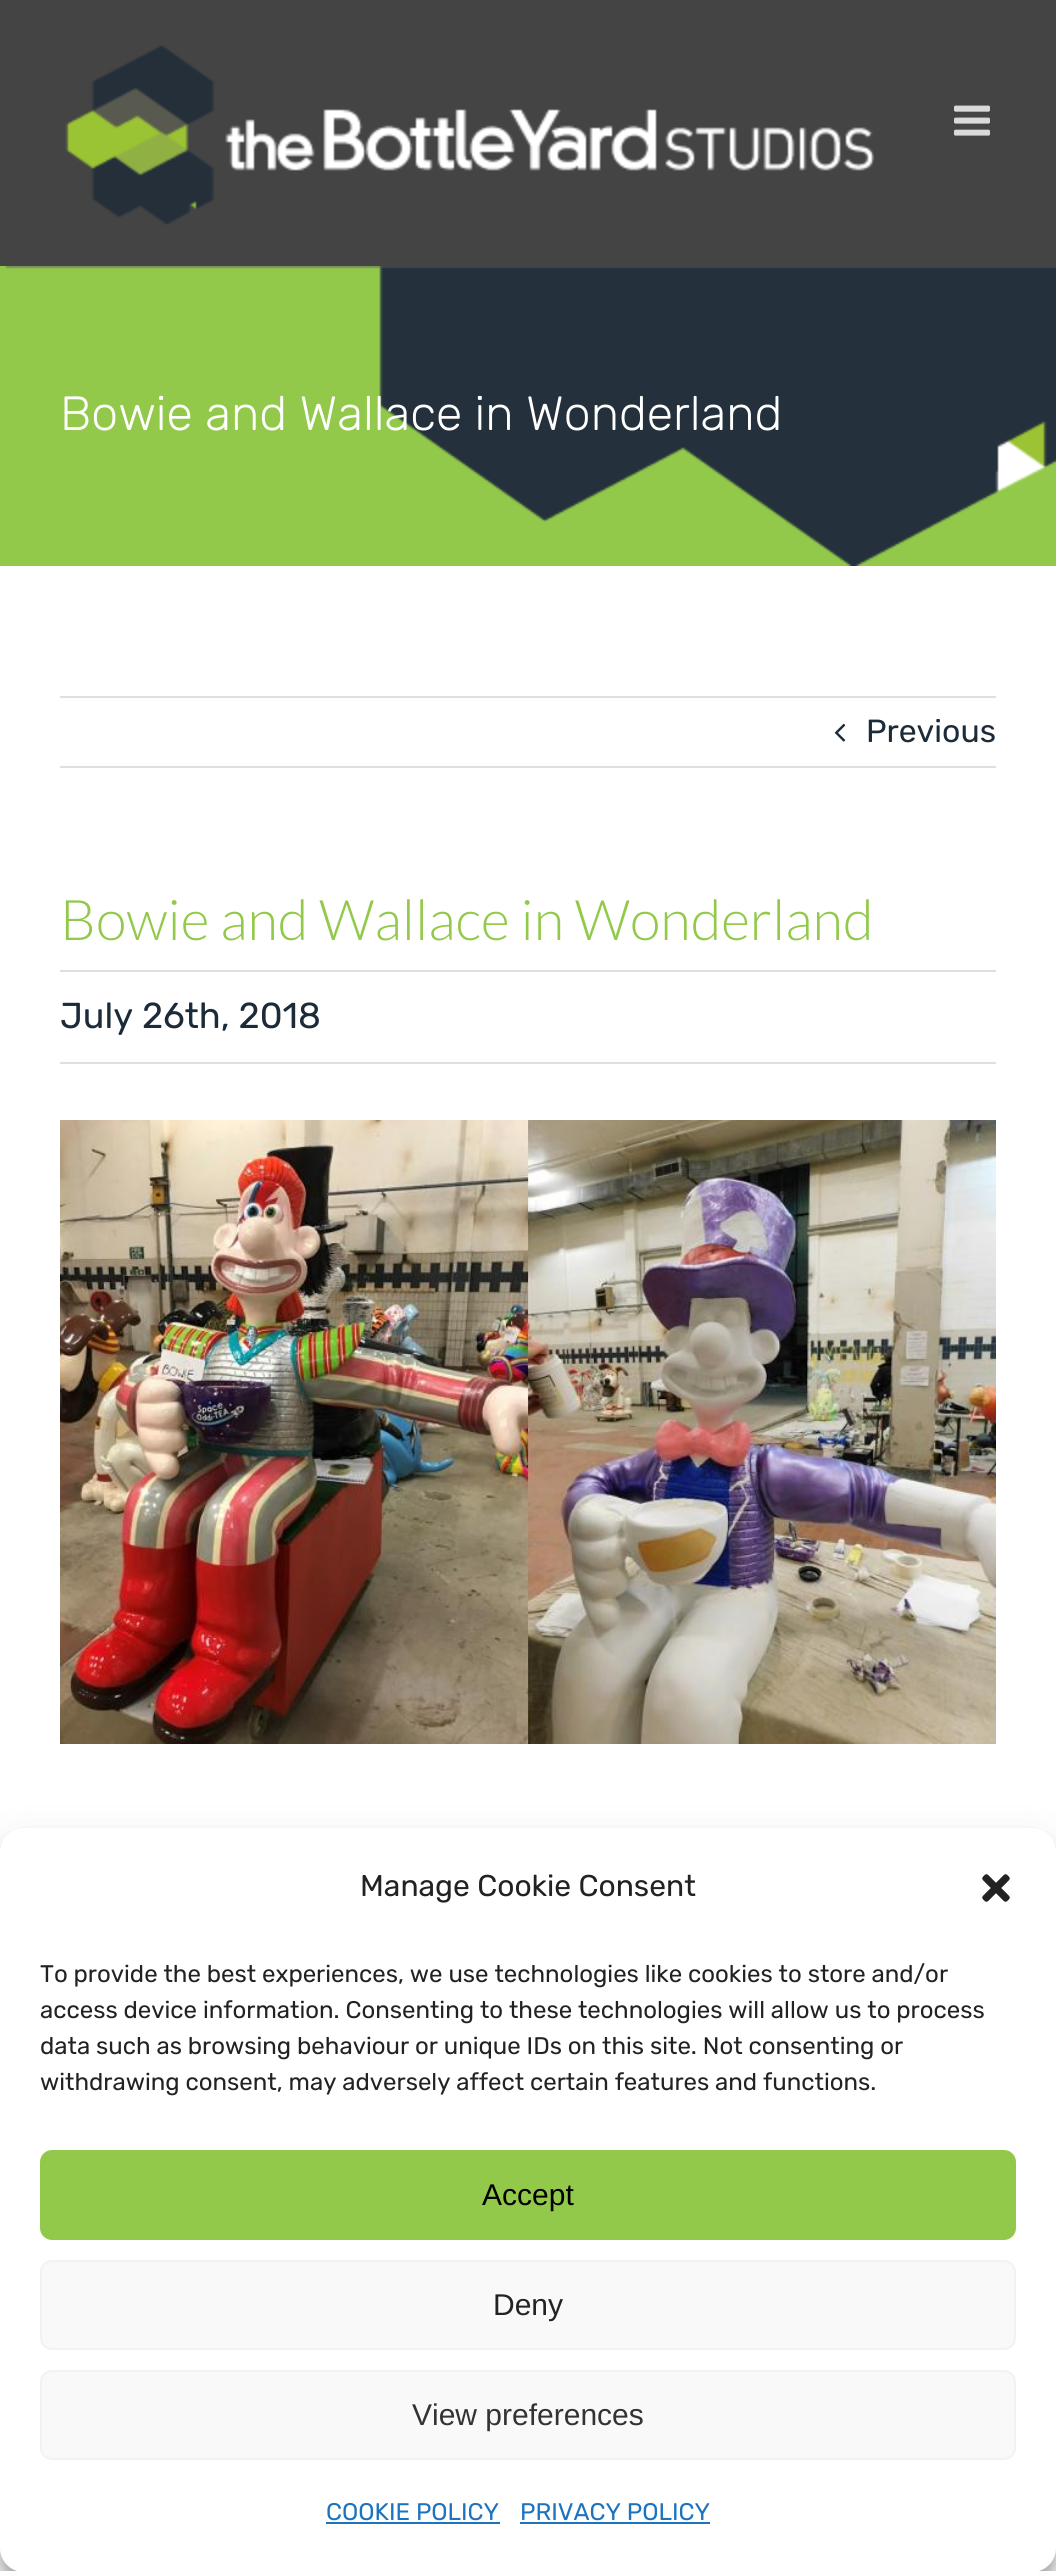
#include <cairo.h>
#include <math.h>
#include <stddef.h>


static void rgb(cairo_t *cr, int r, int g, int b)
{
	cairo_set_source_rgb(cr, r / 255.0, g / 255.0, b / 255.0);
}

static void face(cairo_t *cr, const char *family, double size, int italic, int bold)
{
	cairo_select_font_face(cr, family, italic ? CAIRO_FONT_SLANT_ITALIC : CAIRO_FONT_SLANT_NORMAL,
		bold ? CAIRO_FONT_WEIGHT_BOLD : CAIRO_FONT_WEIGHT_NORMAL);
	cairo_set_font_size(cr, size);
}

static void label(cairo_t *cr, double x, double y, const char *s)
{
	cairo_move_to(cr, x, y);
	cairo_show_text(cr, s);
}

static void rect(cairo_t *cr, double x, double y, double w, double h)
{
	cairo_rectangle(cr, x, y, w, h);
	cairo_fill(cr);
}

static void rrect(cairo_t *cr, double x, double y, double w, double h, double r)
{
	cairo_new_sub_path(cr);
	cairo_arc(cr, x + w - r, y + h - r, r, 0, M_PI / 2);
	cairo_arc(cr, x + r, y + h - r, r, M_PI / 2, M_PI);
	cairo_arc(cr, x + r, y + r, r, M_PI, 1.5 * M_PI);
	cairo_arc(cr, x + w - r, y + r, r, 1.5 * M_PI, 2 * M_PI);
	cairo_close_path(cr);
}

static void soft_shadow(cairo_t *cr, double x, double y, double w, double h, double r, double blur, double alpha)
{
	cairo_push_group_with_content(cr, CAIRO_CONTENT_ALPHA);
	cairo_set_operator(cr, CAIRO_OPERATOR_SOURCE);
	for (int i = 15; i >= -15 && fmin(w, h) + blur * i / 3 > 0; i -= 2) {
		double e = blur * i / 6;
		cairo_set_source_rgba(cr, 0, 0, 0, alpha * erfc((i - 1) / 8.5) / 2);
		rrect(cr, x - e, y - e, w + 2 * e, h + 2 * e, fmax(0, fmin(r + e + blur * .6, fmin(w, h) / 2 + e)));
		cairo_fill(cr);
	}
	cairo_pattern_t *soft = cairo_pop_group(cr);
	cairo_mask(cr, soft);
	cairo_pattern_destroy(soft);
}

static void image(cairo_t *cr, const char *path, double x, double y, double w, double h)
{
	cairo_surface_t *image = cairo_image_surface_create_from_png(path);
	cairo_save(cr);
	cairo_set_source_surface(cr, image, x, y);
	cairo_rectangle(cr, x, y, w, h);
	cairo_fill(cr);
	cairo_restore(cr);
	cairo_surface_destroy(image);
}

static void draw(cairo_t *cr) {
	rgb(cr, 255, 255, 255);
	cairo_paint(cr);
	rgb(cr, 68, 68, 68);
	rect(cr, 0, 0, 1056, 266);
	image(cr, "image0.png", 65, 45, 809, 180);
	image(cr, "image1.png", 954, 105, 36, 31);
	rgb(cr, 146, 201, 75);
	rect(cr, 0, 266, 1056, 300);
	image(cr, "image2.png", 5, 266, 1051, 300);
	face(cr, "Rubik Light", 48, 0, 0);
	rgb(cr, 255, 255, 255);
	label(cr, 60, 430, "Bowie and Wallace in Wonderland");
	rgb(cr, 224, 222, 222);
	rect(cr, 60, 696, 936, 2);
	rect(cr, 60, 766, 936, 2);
	image(cr, "image3.png", 834, 723, 12, 19);
	face(cr, "Rubik", 32, 0, 0);
	rgb(cr, 28, 43, 57);
	label(cr, 866, 742, "Previous");
	face(cr, "Lato Light", 56, 0, 0);
	rgb(cr, 146, 201, 75);
	label(cr, 60, 940, "Bowie and Wallace in Wonderland");
	rgb(cr, 224, 222, 222);
	rect(cr, 60, 970, 936, 2);
	rect(cr, 60, 1062, 936, 2);
	face(cr, "Rubik", 36, 0, 0);
	rgb(cr, 28, 43, 57);
	label(cr, 60, 1028, "July 26th, 2018");
	image(cr, "image4.png", 60, 1120, 936, 624);
	rgb(cr, 0, 0, 0);
	soft_shadow(cr, 0, 1840, 1056, 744, 24, 6, 0.23);
	soft_shadow(cr, 0, 1848, 1056, 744, 24, 20, 0.19);
	rgb(cr, 128, 128, 128);
	soft_shadow(cr, 916, 2424, 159, 120, 4, 5, 1);
	rgb(cr, 255, 255, 255);
	rrect(cr, 0, 1828, 1056, 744, 24);
	cairo_fill(cr);
	face(cr, "Rubik", 30, 0, 0);
	rgb(cr, 34, 34, 34);
	label(cr, 360, 1896, "Manage Cookie Consent");
	image(cr, "image5.png", 982, 1874, 28, 28);
	face(cr, "Rubik", 24, 0, 0);
	label(cr, 40, 1982, "To provide the best experiences, we use technologies like cookies to store and/or");
	label(cr, 40, 2018, "access device information. Consenting to these technologies will allow us to process");
	label(cr, 40, 2054, "data such as browsing behaviour or unique IDs on this site. Not consenting or");
	label(cr, 40, 2090, "withdrawing consent, may adversely affect certain features and functions.");
	rgb(cr, 146, 201, 75);
	rrect(cr, 41, 2151, 974, 88, 11);
	cairo_fill_preserve(cr);
	cairo_stroke(cr);
	face(cr, "Liberation Sans", 30, 0, 0);
	rgb(cr, 0, 0, 0);
	label(cr, 482, 2205, "Accept");
	rgb(cr, 249, 249, 249);
	rrect(cr, 41, 2261, 974, 88, 11);
	cairo_fill_preserve(cr);
	rgb(cr, 242, 242, 242);
	cairo_stroke(cr);
	rgb(cr, 34, 34, 34);
	label(cr, 493, 2315, "Deny");
	rgb(cr, 249, 249, 249);
	rrect(cr, 41, 2371, 974, 88, 11);
	cairo_fill_preserve(cr);
	rgb(cr, 242, 242, 242);
	cairo_stroke(cr);
	rgb(cr, 51, 51, 51);
	label(cr, 412, 2425, "View preferences");
	face(cr, "Rubik", 24, 0, 0);
	rgb(cr, 30, 115, 190);
	label(cr, 326, 2520, "COOKIE POLICY");
	rect(cr, 326, 2522, 174, 2);
	label(cr, 520, 2520, "PRIVACY POLICY");
	rect(cr, 520, 2522, 190, 2);
}

int main(void) {
	cairo_surface_t *surface = cairo_image_surface_create(CAIRO_FORMAT_RGB24, 1056, 2571);
	cairo_t *cr = cairo_create(surface);
	cairo_font_options_t *options = cairo_font_options_create();
	cairo_font_options_set_hint_metrics(options, CAIRO_HINT_METRICS_OFF);
	cairo_font_options_set_hint_style(options, CAIRO_HINT_STYLE_NONE);
	cairo_set_font_options(cr, options);
	cairo_set_miter_limit(cr, 4);
	draw(cr);
	cairo_surface_write_to_png(surface, "render.png");
	cairo_font_options_destroy(options);
	cairo_destroy(cr);
	cairo_surface_destroy(surface);
	return 0;
}
